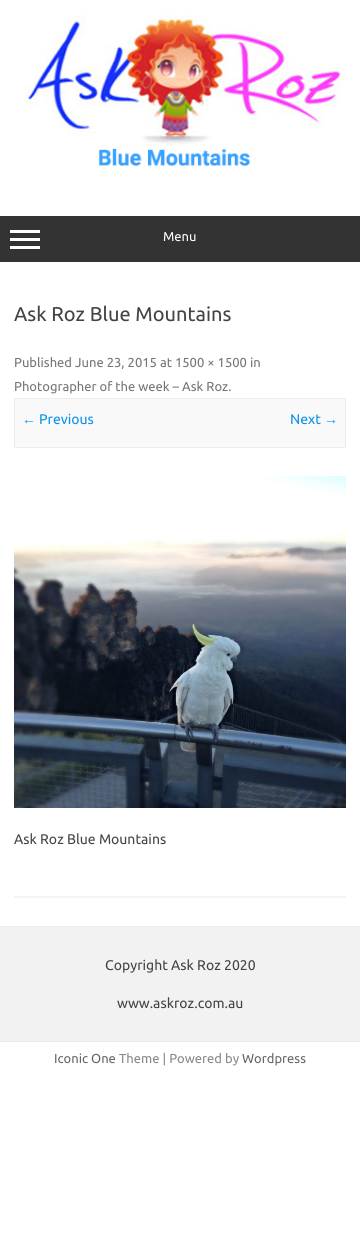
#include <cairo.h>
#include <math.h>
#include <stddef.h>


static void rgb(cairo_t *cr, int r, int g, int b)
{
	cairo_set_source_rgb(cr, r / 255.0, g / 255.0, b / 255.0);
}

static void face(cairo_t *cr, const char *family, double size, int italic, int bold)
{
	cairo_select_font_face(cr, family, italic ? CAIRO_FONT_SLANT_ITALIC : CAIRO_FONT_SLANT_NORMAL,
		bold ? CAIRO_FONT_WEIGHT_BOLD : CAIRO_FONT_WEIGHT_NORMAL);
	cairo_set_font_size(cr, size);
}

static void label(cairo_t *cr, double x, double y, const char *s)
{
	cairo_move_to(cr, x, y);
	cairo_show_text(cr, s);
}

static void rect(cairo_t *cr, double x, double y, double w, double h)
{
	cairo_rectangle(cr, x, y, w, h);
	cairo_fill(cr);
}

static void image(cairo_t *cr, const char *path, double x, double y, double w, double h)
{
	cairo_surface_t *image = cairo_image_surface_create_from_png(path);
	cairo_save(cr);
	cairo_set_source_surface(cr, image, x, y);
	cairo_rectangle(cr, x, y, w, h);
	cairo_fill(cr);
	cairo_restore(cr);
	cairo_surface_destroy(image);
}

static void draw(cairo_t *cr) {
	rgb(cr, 255, 255, 255);
	cairo_paint(cr);
	image(cr, "image0.png", 24, 15, 321, 154);
	rgb(cr, 51, 51, 51);
	rect(cr, 0, 216, 360, 46);
	rgb(cr, 255, 255, 255);
	rect(cr, 10, 230, 30, 3);
	rect(cr, 10, 238, 30, 3);
	rect(cr, 10, 246, 30, 3);
	face(cr, "Ubuntu", 13, 0, 0);
	label(cr, 163, 241, "Menu");
	rgb(cr, 243, 243, 243);
	rect(cr, 14, 896, 332, 2);
	face(cr, "Ubuntu", 20, 0, 0);
	rgb(cr, 68, 68, 68);
	label(cr, 14, 321, "Ask Roz Blue Mountains");
	face(cr, "Ubuntu", 13, 0, 0);
	rgb(cr, 117, 117, 117);
	label(cr, 14, 367, "Published June 23, 2015 at 1500 × 1500 in");
	label(cr, 14, 391, "Photographer of the week – Ask Roz.");
	rgb(cr, 249, 249, 249);
	cairo_rectangle(cr, 14.5, 398.5, 331, 49);
	cairo_fill_preserve(cr);
	rgb(cr, 237, 237, 237);
	cairo_set_line_width(cr, 1);
	cairo_stroke(cr);
	face(cr, "Liberation Sans", 14, 0, 0);
	rgb(cr, 11, 145, 234);
	label(cr, 22, 424, "←");
	face(cr, "Ubuntu", 14, 0, 0);
	label(cr, 39, 424, "Previous");
	label(cr, 290, 424, "Next");
	face(cr, "Liberation Sans", 14, 0, 0);
	label(cr, 324, 424, "→");
	image(cr, "image1.png", 14, 476, 332, 332);
	face(cr, "Ubuntu", 14, 0, 0);
	rgb(cr, 68, 68, 68);
	label(cr, 14, 844, "Ask Roz Blue Mountains");
	rgb(cr, 242, 242, 242);
	rect(cr, 0, 927, 360, 114);
	rgb(cr, 237, 237, 237);
	rect(cr, 0, 926, 360, 1);
	rgb(cr, 233, 233, 233);
	rect(cr, 0, 1041, 360, 1);
	rgb(cr, 68, 68, 68);
	label(cr, 105, 970, "Copyright Ask Roz 2020");
	label(cr, 117, 1008, "www.askroz.com.au");
	face(cr, "Ubuntu", 13, 0, 0);
	rgb(cr, 102, 102, 102);
	label(cr, 54, 1063, "Iconic One");
	rgb(cr, 136, 136, 136);
	label(cr, 119, 1063, "Theme | Powered by");
	rgb(cr, 102, 102, 102);
	label(cr, 242, 1063, "Wordpress");
}

int main(void) {
	cairo_surface_t *surface = cairo_image_surface_create(CAIRO_FORMAT_RGB24, 360, 1253);
	cairo_t *cr = cairo_create(surface);
	cairo_font_options_t *options = cairo_font_options_create();
	cairo_font_options_set_hint_metrics(options, CAIRO_HINT_METRICS_OFF);
	cairo_font_options_set_hint_style(options, CAIRO_HINT_STYLE_NONE);
	cairo_set_font_options(cr, options);
	cairo_set_miter_limit(cr, 4);
	draw(cr);
	cairo_surface_write_to_png(surface, "render.png");
	cairo_font_options_destroy(options);
	cairo_destroy(cr);
	cairo_surface_destroy(surface);
	return 0;
}
